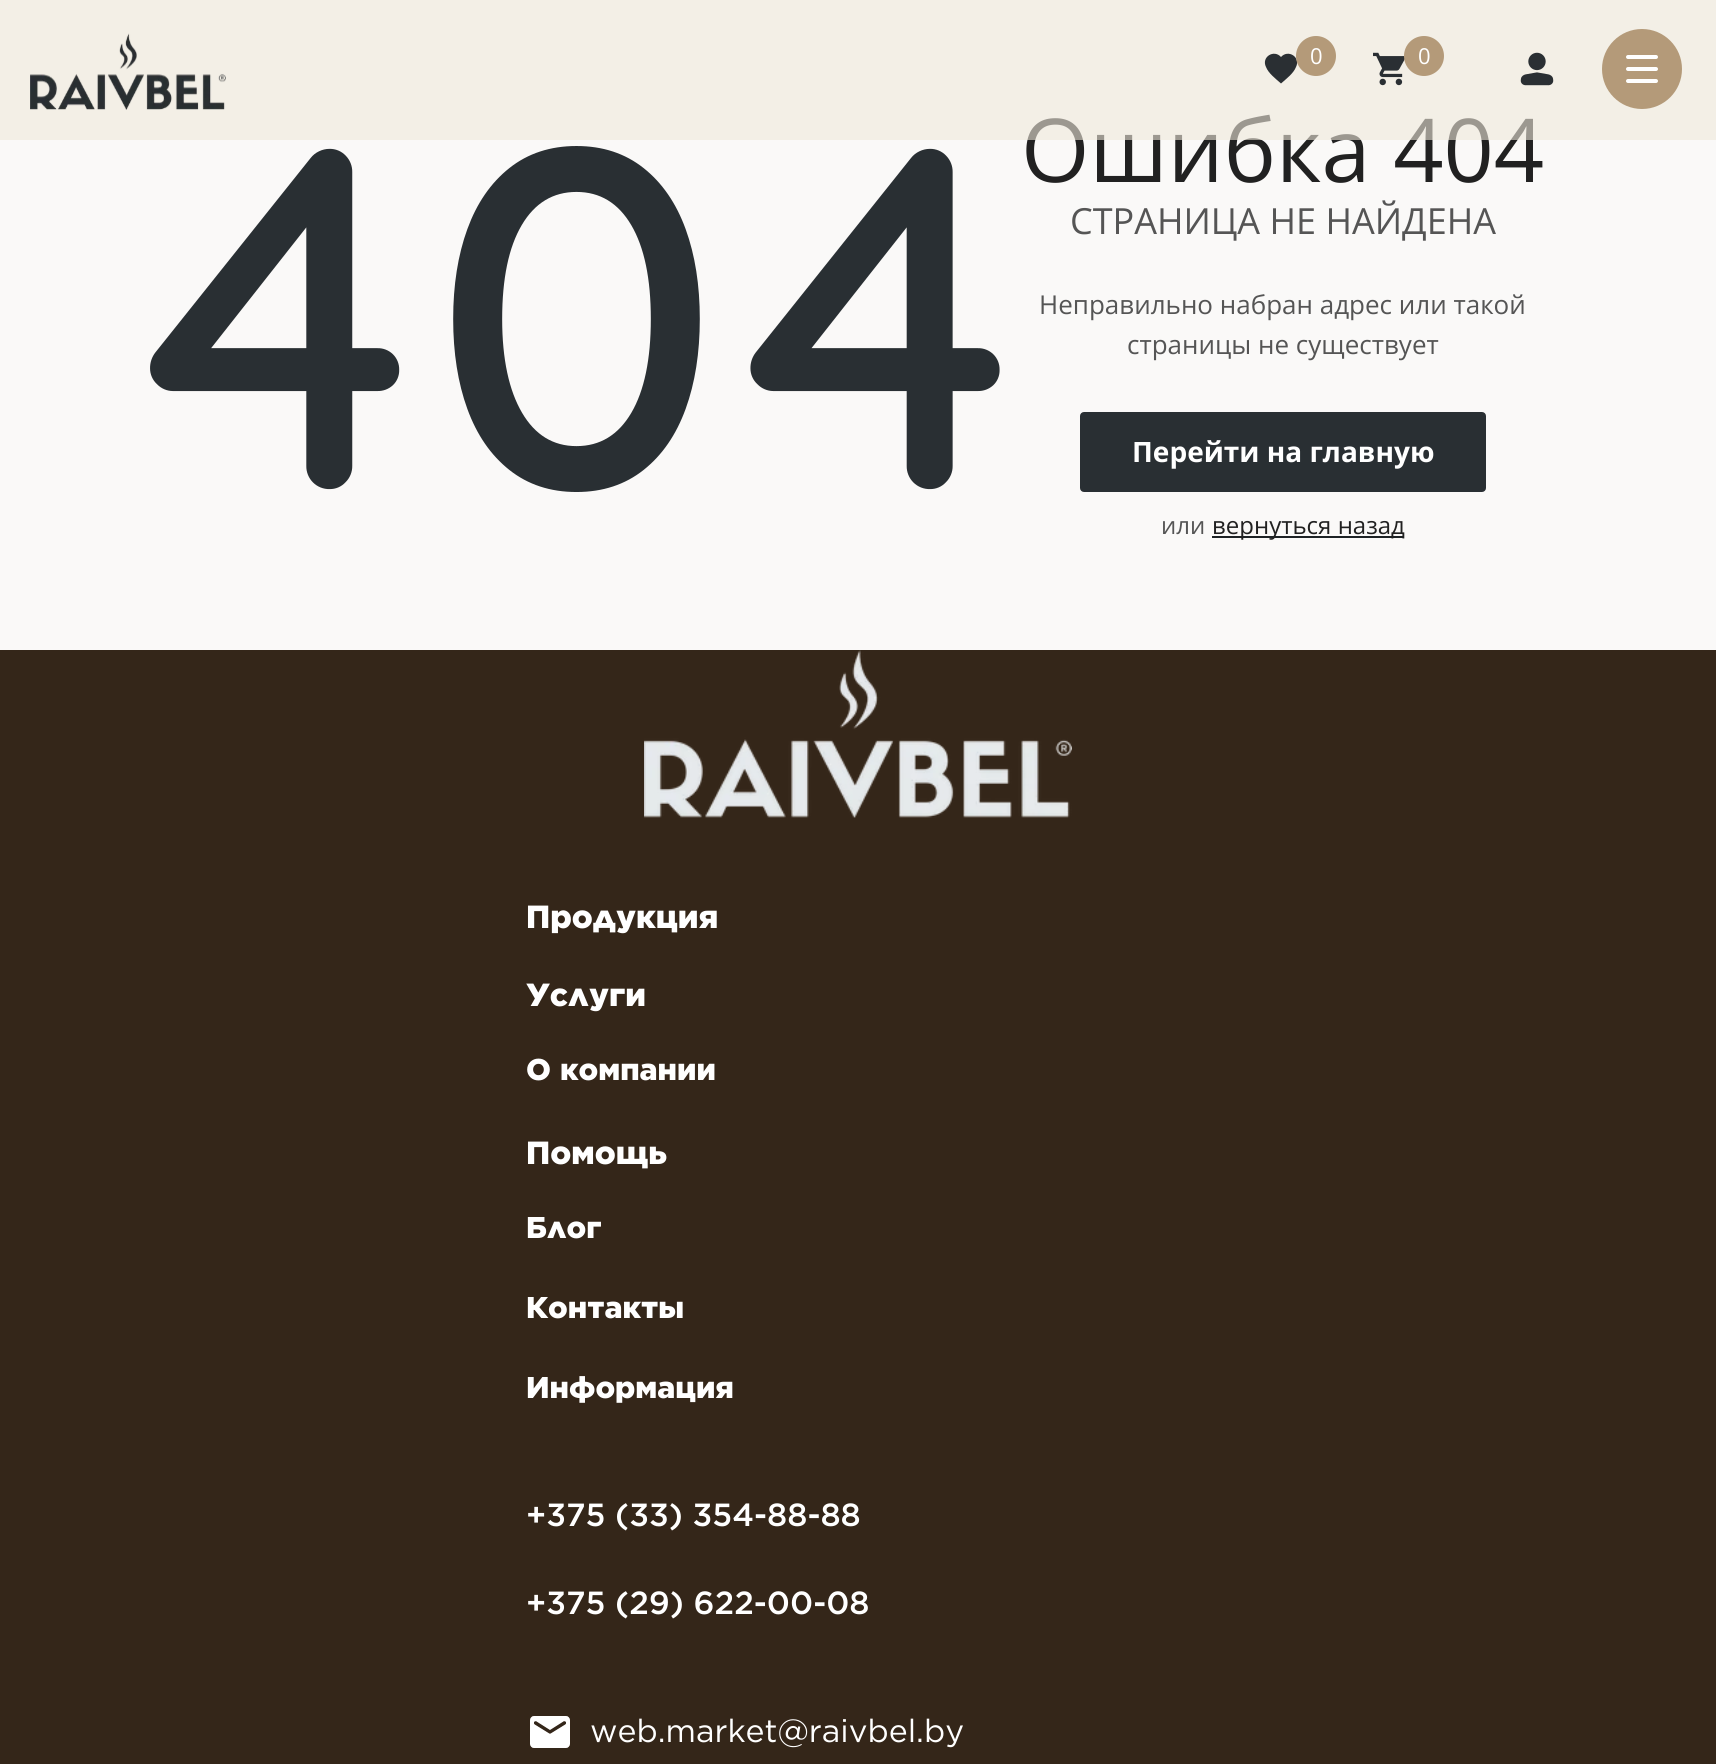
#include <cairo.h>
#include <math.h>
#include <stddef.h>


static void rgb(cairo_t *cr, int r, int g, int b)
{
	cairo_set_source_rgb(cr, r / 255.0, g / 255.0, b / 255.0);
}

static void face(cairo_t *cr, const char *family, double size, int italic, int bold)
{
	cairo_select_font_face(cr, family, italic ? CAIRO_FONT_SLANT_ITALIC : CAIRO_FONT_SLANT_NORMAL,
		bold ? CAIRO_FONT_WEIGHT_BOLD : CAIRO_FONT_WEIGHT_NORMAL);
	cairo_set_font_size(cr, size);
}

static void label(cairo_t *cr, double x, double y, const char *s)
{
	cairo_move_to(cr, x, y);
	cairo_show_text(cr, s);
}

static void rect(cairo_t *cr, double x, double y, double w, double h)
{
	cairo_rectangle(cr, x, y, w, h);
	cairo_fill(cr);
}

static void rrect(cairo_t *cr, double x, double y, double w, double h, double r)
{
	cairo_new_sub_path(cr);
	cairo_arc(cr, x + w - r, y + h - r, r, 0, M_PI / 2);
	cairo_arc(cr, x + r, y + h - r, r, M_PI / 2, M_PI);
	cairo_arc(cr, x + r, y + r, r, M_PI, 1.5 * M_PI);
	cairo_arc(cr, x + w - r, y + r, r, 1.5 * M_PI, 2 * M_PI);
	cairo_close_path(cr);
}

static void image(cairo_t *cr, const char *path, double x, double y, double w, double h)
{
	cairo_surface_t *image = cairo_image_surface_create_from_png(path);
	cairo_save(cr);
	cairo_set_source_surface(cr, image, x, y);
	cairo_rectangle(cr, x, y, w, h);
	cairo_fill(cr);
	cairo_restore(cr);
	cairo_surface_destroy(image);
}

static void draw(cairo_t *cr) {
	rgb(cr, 250, 249, 248);
	cairo_paint(cr);
	face(cr, "Open Sans", 88, 0, 0);
	rgb(cr, 33, 33, 33);
	label(cr, 1021, 182, "Ошибка 404");
	cairo_set_source_rgba(cr, 0.937, 0.906, 0.855, 0.6);
	rect(cr, 0, 0, 1716, 140);
	image(cr, "image0.png", 30, 33, 196, 77);
	rgb(cr, 42, 47, 51);
	cairo_new_path(cr);
	cairo_move_to(cr, 1281, 83.5);
	cairo_curve_to(cr, 1276, 79, 1268.5, 73.5, 1266, 67);
	cairo_curve_to(cr, 1261, 57, 1274, 49, 1281, 57);
	cairo_curve_to(cr, 1288, 49, 1301, 57, 1296, 67);
	cairo_curve_to(cr, 1293.5, 73.5, 1286, 79, 1281, 83.5);
	cairo_close_path(cr);
	cairo_fill(cr);
	rgb(cr, 180, 154, 121);
	cairo_arc(cr, 1316, 56, 20, 0, 2 * M_PI);
	cairo_fill(cr);
	face(cr, "Open Sans", 22, 0, 0);
	rgb(cr, 255, 255, 255);
	label(cr, 1310, 64, "0");
	image(cr, "image1.png", 1373, 52, 32, 34);
	rgb(cr, 180, 154, 121);
	cairo_arc(cr, 1424, 56, 20, 0, 2 * M_PI);
	cairo_fill(cr);
	rgb(cr, 255, 255, 255);
	label(cr, 1418, 64, "0");
	image(cr, "image2.png", 1520, 52, 34, 34);
	image(cr, "image3.png", 1602, 29, 80, 80);
	image(cr, "image4.png", 150, 146, 850, 346);
	face(cr, "Open Sans", 36, 0, 0);
	rgb(cr, 85, 85, 85);
	label(cr, 1070, 234, "СТРАНИЦА НЕ НАЙДЕНА");
	face(cr, "Open Sans", 26, 0, 0);
	label(cr, 1039, 314, "Неправильно набран адрес или такой");
	label(cr, 1127, 354, "страницы не существует");
	rgb(cr, 41, 47, 51);
	rrect(cr, 1081, 413, 404, 78, 3);
	cairo_fill_preserve(cr);
	cairo_stroke(cr);
	face(cr, "Open Sans", 28, 0, 1);
	rgb(cr, 255, 255, 255);
	label(cr, 1132, 462, "Перейти на главную");
	face(cr, "Open Sans", 24, 0, 0);
	rgb(cr, 85, 85, 85);
	label(cr, 1161, 534, "или");
	rgb(cr, 29, 34, 37);
	rect(cr, 1212, 536, 192, 2);
	rgb(cr, 33, 33, 33);
	label(cr, 1212, 534, "вернуться назад");
	rgb(cr, 52, 38, 25);
	rect(cr, 0, 650, 1716, 1114);
	face(cr, "Gotham Black", 32, 0, 0);
	rgb(cr, 255, 255, 255);
	label(cr, 526, 928, "Продукция");
	label(cr, 526, 1006, "Услуги");
	face(cr, "Gotham Black", 30, 0, 0);
	label(cr, 526, 1080, "О компании");
	face(cr, "Gotham Black", 32, 0, 0);
	label(cr, 526, 1164, "Помощь");
	face(cr, "Gotham Black", 30, 0, 0);
	label(cr, 526, 1238, "Блог");
	label(cr, 526, 1318, "Контакты");
	label(cr, 526, 1398, "Информация");
	image(cr, "image5.png", 644, 650, 428, 168);
	face(cr, "Gotham Medium", 32, 0, 0);
	label(cr, 526, 1526, "+375 (33) 354-88-88");
	label(cr, 526, 1614, "+375 (29) 622-00-08");
	image(cr, "image6.png", 530, 1716, 40, 32);
	face(cr, "Gotham", 32, 0, 0);
	label(cr, 590, 1742, "web.market@raivbel.by");
}

int main(void) {
	cairo_surface_t *surface = cairo_image_surface_create(CAIRO_FORMAT_RGB24, 1716, 1764);
	cairo_t *cr = cairo_create(surface);
	cairo_font_options_t *options = cairo_font_options_create();
	cairo_font_options_set_hint_metrics(options, CAIRO_HINT_METRICS_OFF);
	cairo_font_options_set_hint_style(options, CAIRO_HINT_STYLE_NONE);
	cairo_set_font_options(cr, options);
	cairo_set_miter_limit(cr, 4);
	draw(cr);
	cairo_surface_write_to_png(surface, "render.png");
	cairo_font_options_destroy(options);
	cairo_destroy(cr);
	cairo_surface_destroy(surface);
	return 0;
}
